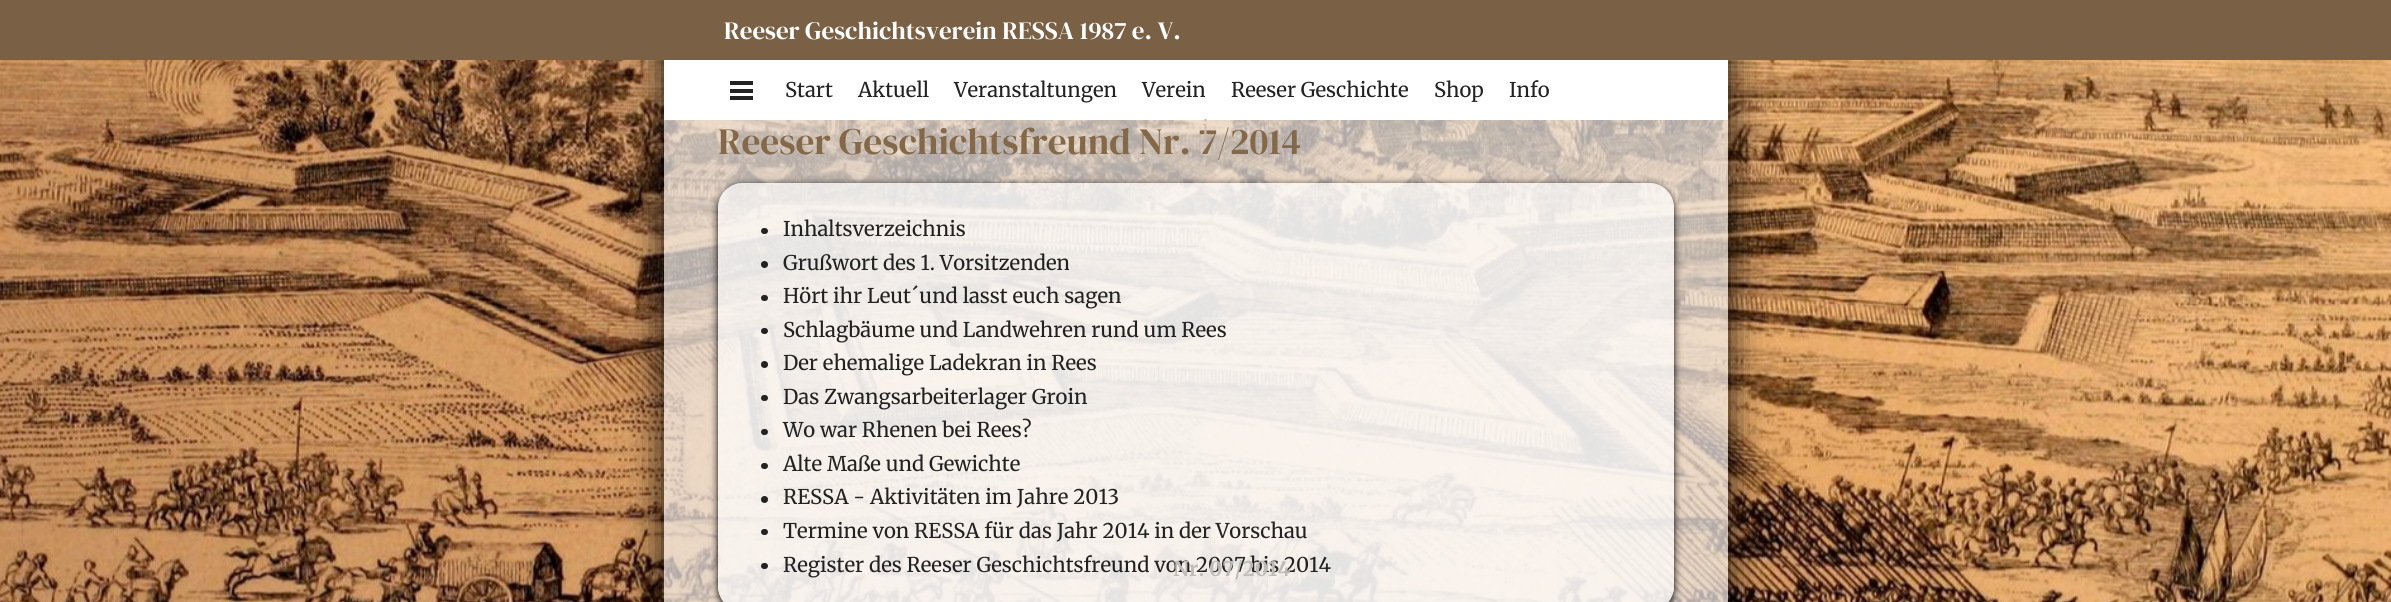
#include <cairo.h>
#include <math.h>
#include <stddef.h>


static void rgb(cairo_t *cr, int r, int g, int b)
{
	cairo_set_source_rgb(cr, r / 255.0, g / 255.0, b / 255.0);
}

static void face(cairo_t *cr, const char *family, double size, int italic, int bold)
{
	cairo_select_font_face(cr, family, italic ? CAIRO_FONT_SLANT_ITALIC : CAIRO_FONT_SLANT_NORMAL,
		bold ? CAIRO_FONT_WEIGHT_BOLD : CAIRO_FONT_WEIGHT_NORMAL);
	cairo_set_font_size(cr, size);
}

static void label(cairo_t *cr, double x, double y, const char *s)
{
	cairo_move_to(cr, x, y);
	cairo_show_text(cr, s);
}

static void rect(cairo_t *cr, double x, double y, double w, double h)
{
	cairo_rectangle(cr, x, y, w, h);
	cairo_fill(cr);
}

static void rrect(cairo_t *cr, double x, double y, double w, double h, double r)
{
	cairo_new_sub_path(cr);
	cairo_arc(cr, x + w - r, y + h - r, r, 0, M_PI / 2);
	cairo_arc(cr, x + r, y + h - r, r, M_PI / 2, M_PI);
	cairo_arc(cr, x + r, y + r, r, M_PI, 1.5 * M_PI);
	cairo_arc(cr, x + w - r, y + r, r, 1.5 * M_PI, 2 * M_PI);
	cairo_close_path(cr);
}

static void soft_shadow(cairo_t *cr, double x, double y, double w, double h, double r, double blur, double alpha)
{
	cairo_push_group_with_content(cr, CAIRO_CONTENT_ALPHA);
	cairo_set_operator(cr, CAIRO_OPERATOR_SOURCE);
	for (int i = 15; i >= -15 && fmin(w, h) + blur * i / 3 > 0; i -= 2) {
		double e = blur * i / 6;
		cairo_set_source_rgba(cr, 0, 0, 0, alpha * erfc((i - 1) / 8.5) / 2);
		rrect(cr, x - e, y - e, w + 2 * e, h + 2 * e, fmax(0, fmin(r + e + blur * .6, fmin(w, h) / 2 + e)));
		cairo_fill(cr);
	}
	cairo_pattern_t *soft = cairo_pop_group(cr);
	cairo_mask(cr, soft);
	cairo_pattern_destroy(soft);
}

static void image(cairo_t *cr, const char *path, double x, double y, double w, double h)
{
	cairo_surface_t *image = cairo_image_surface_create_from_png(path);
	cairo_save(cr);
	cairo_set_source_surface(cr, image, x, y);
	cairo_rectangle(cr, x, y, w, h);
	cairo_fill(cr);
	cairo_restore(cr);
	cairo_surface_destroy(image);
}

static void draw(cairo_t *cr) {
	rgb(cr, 255, 255, 255);
	cairo_paint(cr);
	image(cr, "image0.png", 0, 60, 2391, 542);
	cairo_set_source_rgba(cr, 0.953, 0.941, 0.929, 0.7);
	rect(cr, 664, 120, 1064, 482);
	cairo_save(cr);
	cairo_set_fill_rule(cr, CAIRO_FILL_RULE_EVEN_ODD);
	cairo_new_path(cr);
	cairo_move_to(cr, 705, 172);
	cairo_line_to(cr, 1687, 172);
	cairo_line_to(cr, 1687, 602);
	cairo_line_to(cr, 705, 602);
	cairo_close_path(cr);
	cairo_move_to(cr, 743, 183);
	cairo_line_to(cr, 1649, 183);
	cairo_curve_to(cr, 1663, 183, 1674, 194, 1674, 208);
	cairo_line_to(cr, 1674, 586);
	cairo_curve_to(cr, 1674, 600, 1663, 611, 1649, 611);
	cairo_line_to(cr, 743, 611);
	cairo_curve_to(cr, 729, 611, 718, 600, 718, 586);
	cairo_line_to(cr, 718, 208);
	cairo_curve_to(cr, 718, 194, 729, 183, 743, 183);
	cairo_close_path(cr);
	cairo_clip(cr);
	rgb(cr, 0, 0, 0);
	soft_shadow(cr, 718, 185, 956, 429, 25, 4, 1);
	cairo_restore(cr);
	cairo_set_source_rgba(cr, 1, 1, 1, 0.68);
	rrect(cr, 718, 183, 956, 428, 25);
	cairo_fill(cr);
	rgb(cr, 34, 34, 34);
	rrect(cr, 761, 228, 7, 6, 3);
	cairo_fill(cr);
	cairo_arc(cr, 764.5, 264.5, 3.5, 0, 2 * M_PI);
	cairo_fill(cr);
	rrect(cr, 761, 295, 7, 6, 3);
	cairo_fill(cr);
	rrect(cr, 761, 328, 7, 6, 3);
	cairo_fill(cr);
	cairo_arc(cr, 764.5, 364.5, 3.5, 0, 2 * M_PI);
	cairo_fill(cr);
	rrect(cr, 761, 395, 7, 6, 3);
	cairo_fill(cr);
	rrect(cr, 761, 429, 7, 6, 3);
	cairo_fill(cr);
	rrect(cr, 761, 463, 7, 6, 3);
	cairo_fill(cr);
	cairo_arc(cr, 764.5, 499.5, 3.5, 0, 2 * M_PI);
	cairo_fill(cr);
	rrect(cr, 761, 529, 7, 6, 3);
	cairo_fill(cr);
	rrect(cr, 761, 563, 7, 6, 3);
	cairo_fill(cr);
	cairo_save(cr);
	cairo_set_fill_rule(cr, CAIRO_FILL_RULE_EVEN_ODD);
	cairo_new_path(cr);
	cairo_move_to(cr, 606, 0);
	cairo_line_to(cr, 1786, 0);
	cairo_line_to(cr, 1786, 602);
	cairo_line_to(cr, 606, 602);
	cairo_close_path(cr);
	cairo_move_to(cr, 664, -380);
	cairo_line_to(cr, 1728, -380);
	cairo_line_to(cr, 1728, 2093);
	cairo_line_to(cr, 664, 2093);
	cairo_close_path(cr);
	cairo_clip(cr);
	rgb(cr, 0, 0, 0);
	soft_shadow(cr, 664, -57, 1064, 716, 0, 19, 0.99);
	cairo_restore(cr);
	rgb(cr, 122, 97, 69);
	rect(cr, 0, 0, 2391, 60);
	face(cr, "DM Serif Display", 25, 0, 0);
	rgb(cr, 255, 255, 255);
	label(cr, 724, 39, "Reeser Geschichtsverein RESSA 1987 e. V.");
	rect(cr, 664, 60, 1064, 60);
	rgb(cr, 34, 34, 34);
	rect(cr, 730, 81, 23, 4);
	rect(cr, 730, 89, 23, 4);
	rect(cr, 730, 96, 23, 4);
	face(cr, "Merriweather", 20.3, 0, 0);
	label(cr, 785, 97, "Start");
	label(cr, 858, 97, "Aktuell");
	label(cr, 954, 97, "Veranstaltungen");
	label(cr, 1142, 97, "Verein");
	face(cr, "DM Serif Display", 37.25, 0, 0);
	rgb(cr, 131, 104, 73);
	label(cr, 718, 154, "Reeser Geschichtsfreund Nr. 7/2014");
	face(cr, "Merriweather", 20.3, 0, 0);
	rgb(cr, 207, 191, 177);
	label(cr, 1202, 135, "i");
	rgb(cr, 34, 34, 34);
	label(cr, 783, 572, "Register des Reeser Geschichtsfreund von 2007 bis 2014");
	face(cr, "Merriweather", 20.3, 0, 1);
	rgb(cr, 191, 188, 184);
	label(cr, 1173, 576, "Nr. 07/2014");
	face(cr, "Merriweather", 20.3, 0, 0);
	rgb(cr, 34, 34, 34);
	label(cr, 1231, 97, "Reeser Geschichte");
	label(cr, 1434, 97, "Shop");
	label(cr, 1509, 97, "Info");
	label(cr, 783, 236, "Inhaltsverzeichnis");
	label(cr, 783, 270, "Grußwort des 1. Vorsitzenden");
	label(cr, 783, 303, "Hört ihr Leut´und lasst euch sagen");
	label(cr, 783, 337, "Schlagbäume und Landwehren rund um Rees");
	label(cr, 783, 370, "Der ehemalige Ladekran in Rees");
	label(cr, 783, 404, "Das Zwangsarbeiterlager Groin");
	label(cr, 783, 437, "Wo war Rhenen bei Rees?");
	label(cr, 783, 471, "Alte Maße und Gewichte");
	label(cr, 783, 504, "RESSA - Aktivitäten im Jahre 2013");
	label(cr, 783, 538, "Termine von RESSA für das Jahr 2014 in der Vorschau");
}

int main(void) {
	cairo_surface_t *surface = cairo_image_surface_create(CAIRO_FORMAT_RGB24, 2391, 602);
	cairo_t *cr = cairo_create(surface);
	cairo_font_options_t *options = cairo_font_options_create();
	cairo_font_options_set_hint_metrics(options, CAIRO_HINT_METRICS_OFF);
	cairo_font_options_set_hint_style(options, CAIRO_HINT_STYLE_NONE);
	cairo_set_font_options(cr, options);
	cairo_set_miter_limit(cr, 4);
	draw(cr);
	cairo_surface_write_to_png(surface, "render.png");
	cairo_font_options_destroy(options);
	cairo_destroy(cr);
	cairo_surface_destroy(surface);
	return 0;
}
